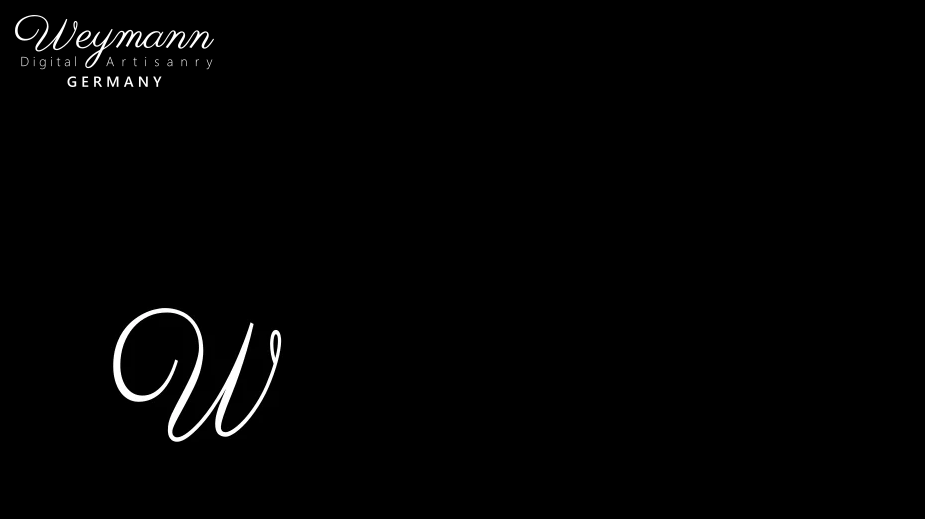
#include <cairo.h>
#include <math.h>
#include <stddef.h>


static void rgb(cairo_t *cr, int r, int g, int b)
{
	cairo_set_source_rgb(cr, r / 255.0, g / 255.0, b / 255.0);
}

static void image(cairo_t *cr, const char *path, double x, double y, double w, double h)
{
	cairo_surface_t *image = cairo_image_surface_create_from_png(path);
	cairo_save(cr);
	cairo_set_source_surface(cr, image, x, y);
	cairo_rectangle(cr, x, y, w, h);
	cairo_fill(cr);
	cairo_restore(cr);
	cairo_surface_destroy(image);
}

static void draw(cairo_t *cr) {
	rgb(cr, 0, 0, 0);
	cairo_paint(cr);
	image(cr, "image0.png", 15, 15, 199, 72);
	image(cr, "image1.png", 111, 307, 172, 135);
}

int main(void) {
	cairo_surface_t *surface = cairo_image_surface_create(CAIRO_FORMAT_RGB24, 925, 519);
	cairo_t *cr = cairo_create(surface);
	cairo_font_options_t *options = cairo_font_options_create();
	cairo_font_options_set_hint_metrics(options, CAIRO_HINT_METRICS_OFF);
	cairo_font_options_set_hint_style(options, CAIRO_HINT_STYLE_NONE);
	cairo_set_font_options(cr, options);
	cairo_set_miter_limit(cr, 4);
	draw(cr);
	cairo_surface_write_to_png(surface, "render.png");
	cairo_font_options_destroy(options);
	cairo_destroy(cr);
	cairo_surface_destroy(surface);
	return 0;
}
